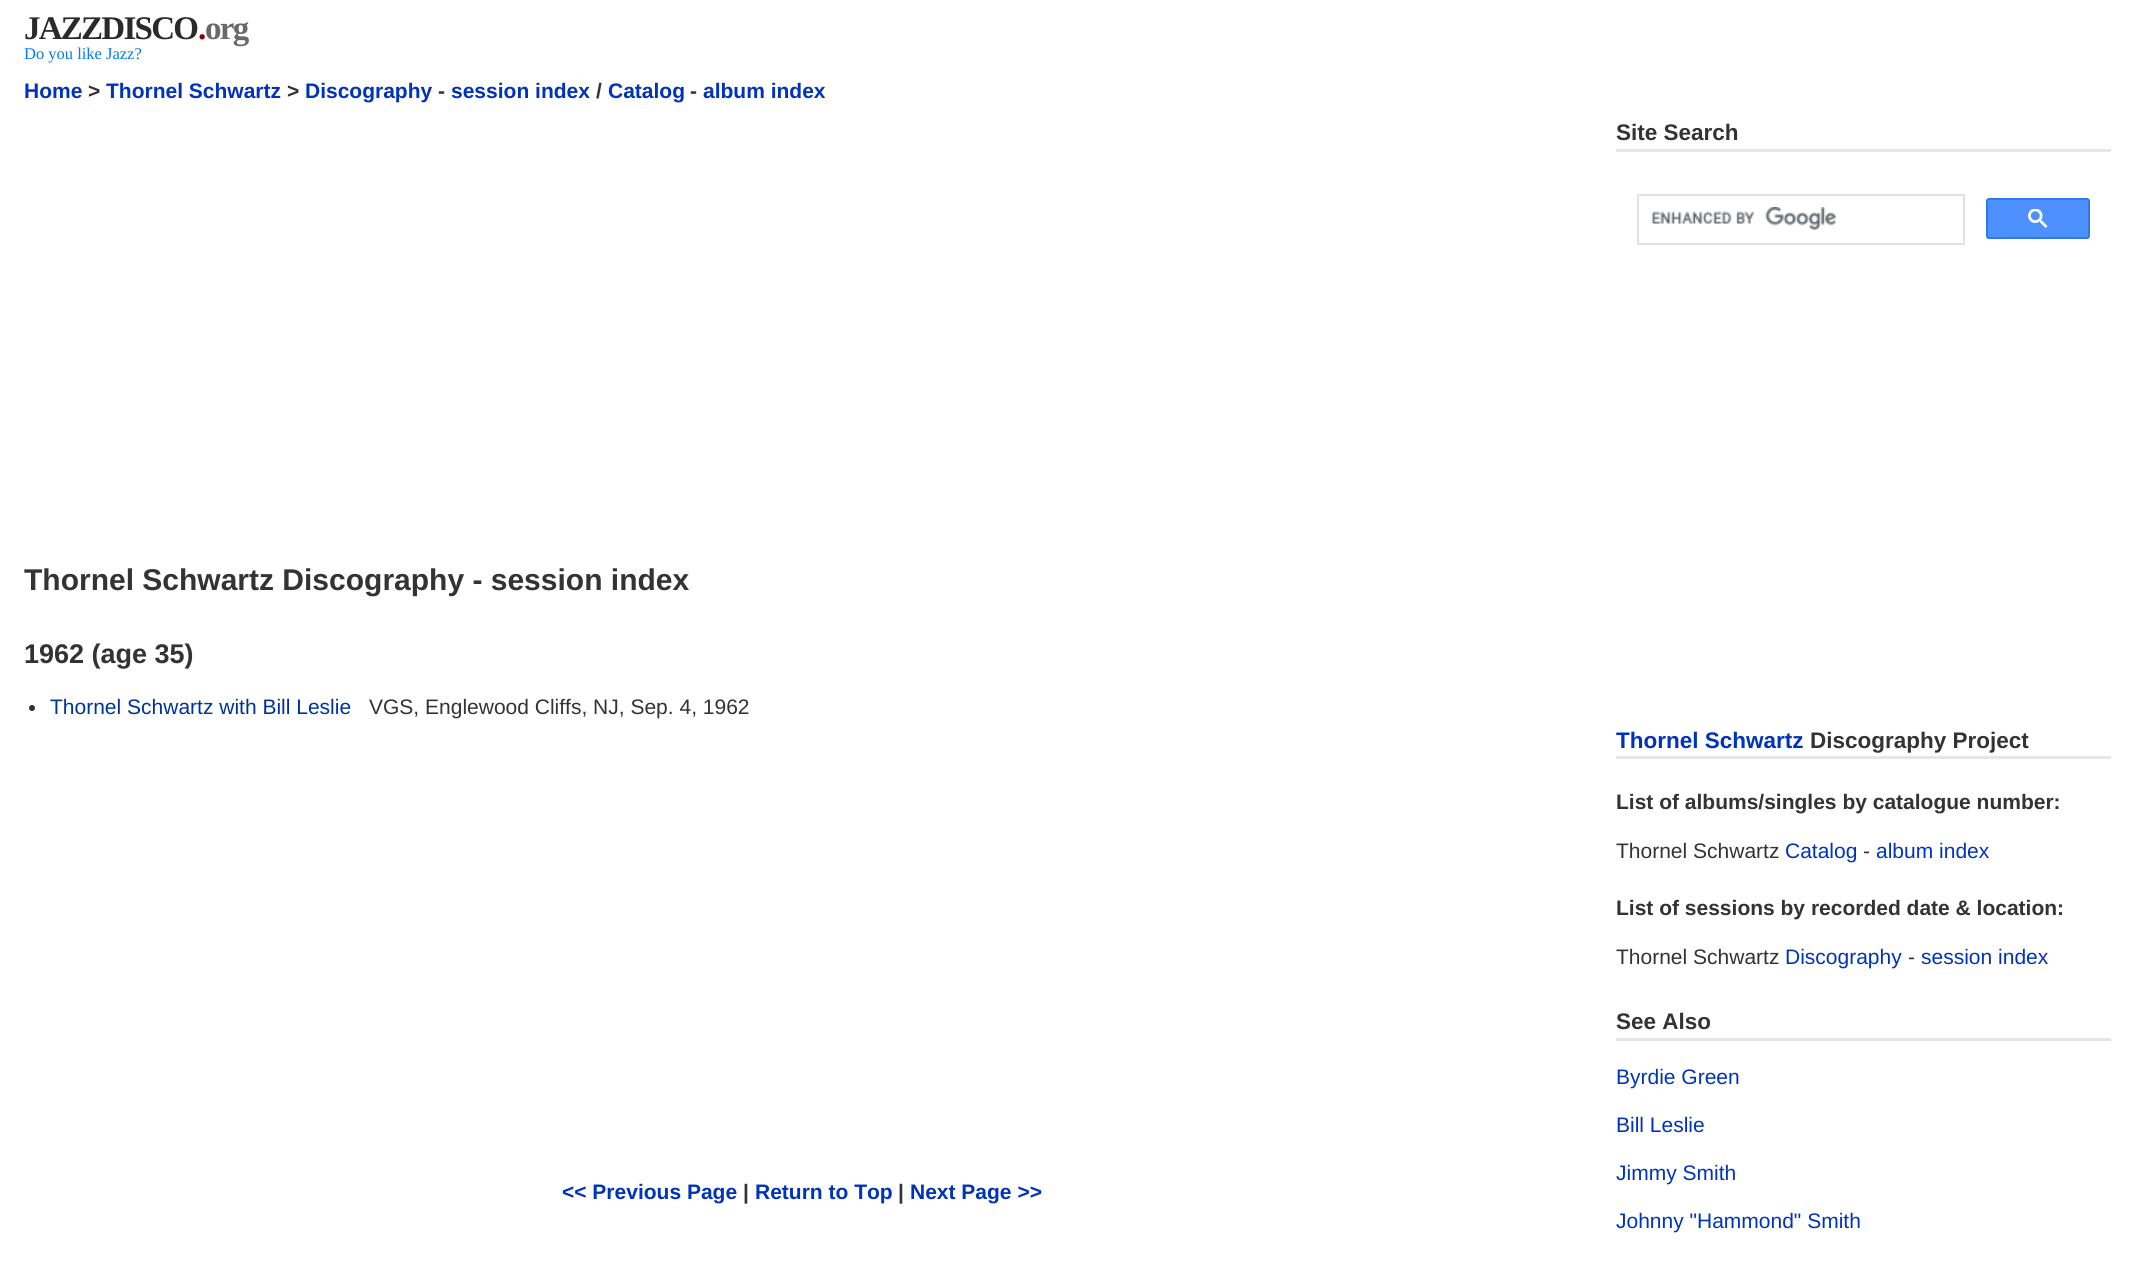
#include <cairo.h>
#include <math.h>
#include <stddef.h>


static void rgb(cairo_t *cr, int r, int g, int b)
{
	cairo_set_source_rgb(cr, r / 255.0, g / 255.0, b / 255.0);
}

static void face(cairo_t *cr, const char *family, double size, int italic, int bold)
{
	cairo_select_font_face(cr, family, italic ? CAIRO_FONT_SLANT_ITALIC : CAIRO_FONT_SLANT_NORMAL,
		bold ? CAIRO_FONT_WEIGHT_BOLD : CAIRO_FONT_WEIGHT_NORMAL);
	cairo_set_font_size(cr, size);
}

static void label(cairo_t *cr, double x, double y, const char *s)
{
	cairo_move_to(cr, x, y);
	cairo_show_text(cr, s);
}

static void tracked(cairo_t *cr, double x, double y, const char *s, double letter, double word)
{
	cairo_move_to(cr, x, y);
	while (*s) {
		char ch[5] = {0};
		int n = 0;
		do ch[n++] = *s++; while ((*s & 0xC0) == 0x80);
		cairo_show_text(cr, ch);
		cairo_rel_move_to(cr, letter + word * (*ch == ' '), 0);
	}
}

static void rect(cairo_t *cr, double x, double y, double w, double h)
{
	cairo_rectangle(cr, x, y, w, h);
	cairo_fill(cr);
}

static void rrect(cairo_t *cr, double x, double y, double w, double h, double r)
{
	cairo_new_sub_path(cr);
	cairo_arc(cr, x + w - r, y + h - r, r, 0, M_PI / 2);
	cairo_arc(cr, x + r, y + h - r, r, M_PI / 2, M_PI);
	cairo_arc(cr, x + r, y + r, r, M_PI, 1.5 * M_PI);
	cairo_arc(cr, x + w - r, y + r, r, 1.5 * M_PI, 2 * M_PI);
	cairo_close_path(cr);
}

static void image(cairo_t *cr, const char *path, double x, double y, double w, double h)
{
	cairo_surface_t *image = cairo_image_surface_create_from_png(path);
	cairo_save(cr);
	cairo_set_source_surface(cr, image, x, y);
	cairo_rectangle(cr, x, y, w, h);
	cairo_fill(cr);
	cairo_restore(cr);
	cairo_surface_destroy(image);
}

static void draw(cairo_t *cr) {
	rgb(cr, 255, 255, 255);
	cairo_paint(cr);
	face(cr, "Liberation Serif", 33, 0, 1);
	rgb(cr, 42, 42, 42);
	tracked(cr, 24, 39, "JAZZDISCO", -1.75, 0);
	rgb(cr, 139, 0, 0);
	tracked(cr, 198, 39, ".", -1.75, 0);
	rgb(cr, 105, 105, 105);
	tracked(cr, 205, 39, "org", -1.75, 0);
	face(cr, "Liberation Serif", 16.5, 0, 0);
	rgb(cr, 0, 122, 255);
	label(cr, 24, 59, "Do you like Jazz?");
	face(cr, "Liberation Sans", 21, 0, 1);
	rgb(cr, 0, 51, 187);
	label(cr, 24, 98, "Home");
	rgb(cr, 51, 51, 51);
	label(cr, 88, 98, ">");
	rgb(cr, 0, 51, 187);
	label(cr, 106, 98, "Thornel Schwartz");
	rgb(cr, 51, 51, 51);
	label(cr, 287, 98, ">");
	rgb(cr, 0, 51, 187);
	label(cr, 305, 98, "Discography");
	rgb(cr, 51, 51, 51);
	label(cr, 438, 98, "-");
	rgb(cr, 0, 51, 187);
	label(cr, 451, 98, "session index");
	rgb(cr, 51, 51, 51);
	label(cr, 596, 98, "/");
	rgb(cr, 0, 51, 187);
	label(cr, 608, 98, "Catalog");
	rgb(cr, 51, 51, 51);
	label(cr, 690, 98, "-");
	rgb(cr, 0, 51, 187);
	label(cr, 703, 98, "album index");
	face(cr, "Liberation Sans", 30, 0, 1);
	rgb(cr, 51, 51, 51);
	label(cr, 24, 590, "Thornel Schwartz Discography - session index");
	face(cr, "Liberation Sans", 27, 0, 1);
	label(cr, 24, 663, "1962 (age 35)");
	cairo_new_path(cr);
	cairo_arc(cr, 32, 708, 3, 0, 2 * M_PI);
	cairo_fill(cr);
	face(cr, "Liberation Sans", 21, 0, 0);
	rgb(cr, 0, 51, 153);
	label(cr, 50, 714, "Thornel Schwartz with Bill Leslie");
	rgb(cr, 51, 51, 51);
	label(cr, 369, 714, "VGS, Englewood Cliffs, NJ, Sep. 4, 1962");
	face(cr, "Liberation Sans", 21, 0, 1);
	rgb(cr, 0, 51, 187);
	label(cr, 562, 1199, "<< Previous Page");
	rgb(cr, 51, 51, 51);
	label(cr, 743, 1199, "|");
	rgb(cr, 0, 51, 187);
	label(cr, 755, 1199, "Return to Top");
	rgb(cr, 51, 51, 51);
	label(cr, 898, 1199, "|");
	rgb(cr, 0, 51, 187);
	label(cr, 910, 1199, "Next Page >>");
	rgb(cr, 230, 230, 230);
	rect(cr, 1616, 149, 495, 3);
	face(cr, "Liberation Sans", 22.5, 0, 1);
	rgb(cr, 51, 51, 51);
	label(cr, 1616, 140, "Site Search");
	cairo_rectangle(cr, 1638, 195, 326, 49);
	rgb(cr, 223, 225, 229);
	cairo_stroke(cr);
	image(cr, "image0.png", 1651, 207, 185, 23);
	rgb(cr, 77, 144, 254);
	rrect(cr, 1987, 199, 102, 39, 2);
	cairo_fill_preserve(cr);
	rgb(cr, 48, 121, 237);
	cairo_stroke(cr);
	image(cr, "image1.png", 2028, 209, 20, 19);
	rgb(cr, 230, 230, 230);
	rect(cr, 1616, 756, 495, 3);
	rgb(cr, 0, 51, 187);
	label(cr, 1616, 748, "Thornel Schwartz");
	rgb(cr, 51, 51, 51);
	label(cr, 1810, 748, "Discography Project");
	face(cr, "Liberation Sans", 21, 0, 1);
	label(cr, 1616, 809, "List of albums/singles by catalogue number:");
	face(cr, "Liberation Sans", 21, 0, 0);
	label(cr, 1616, 858, "Thornel Schwartz");
	rgb(cr, 0, 51, 187);
	label(cr, 1785, 858, "Catalog");
	rgb(cr, 51, 51, 51);
	label(cr, 1863, 858, "-");
	rgb(cr, 0, 51, 187);
	label(cr, 1876, 858, "album index");
	face(cr, "Liberation Sans", 21, 0, 1);
	rgb(cr, 51, 51, 51);
	label(cr, 1616, 915, "List of sessions by recorded date & location:");
	face(cr, "Liberation Sans", 21, 0, 0);
	label(cr, 1616, 964, "Thornel Schwartz");
	rgb(cr, 0, 51, 187);
	label(cr, 1785, 964, "Discography");
	rgb(cr, 51, 51, 51);
	label(cr, 1908, 964, "-");
	rgb(cr, 0, 51, 187);
	label(cr, 1921, 964, "session index");
	rgb(cr, 230, 230, 230);
	rect(cr, 1616, 1038, 495, 3);
	face(cr, "Liberation Sans", 22.5, 0, 1);
	rgb(cr, 51, 51, 51);
	label(cr, 1616, 1029, "See Also");
	face(cr, "Liberation Sans", 21, 0, 0);
	rgb(cr, 0, 51, 187);
	label(cr, 1616, 1084, "Byrdie Green");
	label(cr, 1616, 1132, "Bill Leslie");
	label(cr, 1616, 1180, "Jimmy Smith");
	label(cr, 1616, 1228, "Johnny \"Hammond\" Smith");
}

int main(void) {
	cairo_surface_t *surface = cairo_image_surface_create(CAIRO_FORMAT_RGB24, 2134, 1263);
	cairo_t *cr = cairo_create(surface);
	cairo_font_options_t *options = cairo_font_options_create();
	cairo_font_options_set_hint_metrics(options, CAIRO_HINT_METRICS_OFF);
	cairo_font_options_set_hint_style(options, CAIRO_HINT_STYLE_NONE);
	cairo_set_font_options(cr, options);
	cairo_set_miter_limit(cr, 4);
	draw(cr);
	cairo_surface_write_to_png(surface, "render.png");
	cairo_font_options_destroy(options);
	cairo_destroy(cr);
	cairo_surface_destroy(surface);
	return 0;
}
